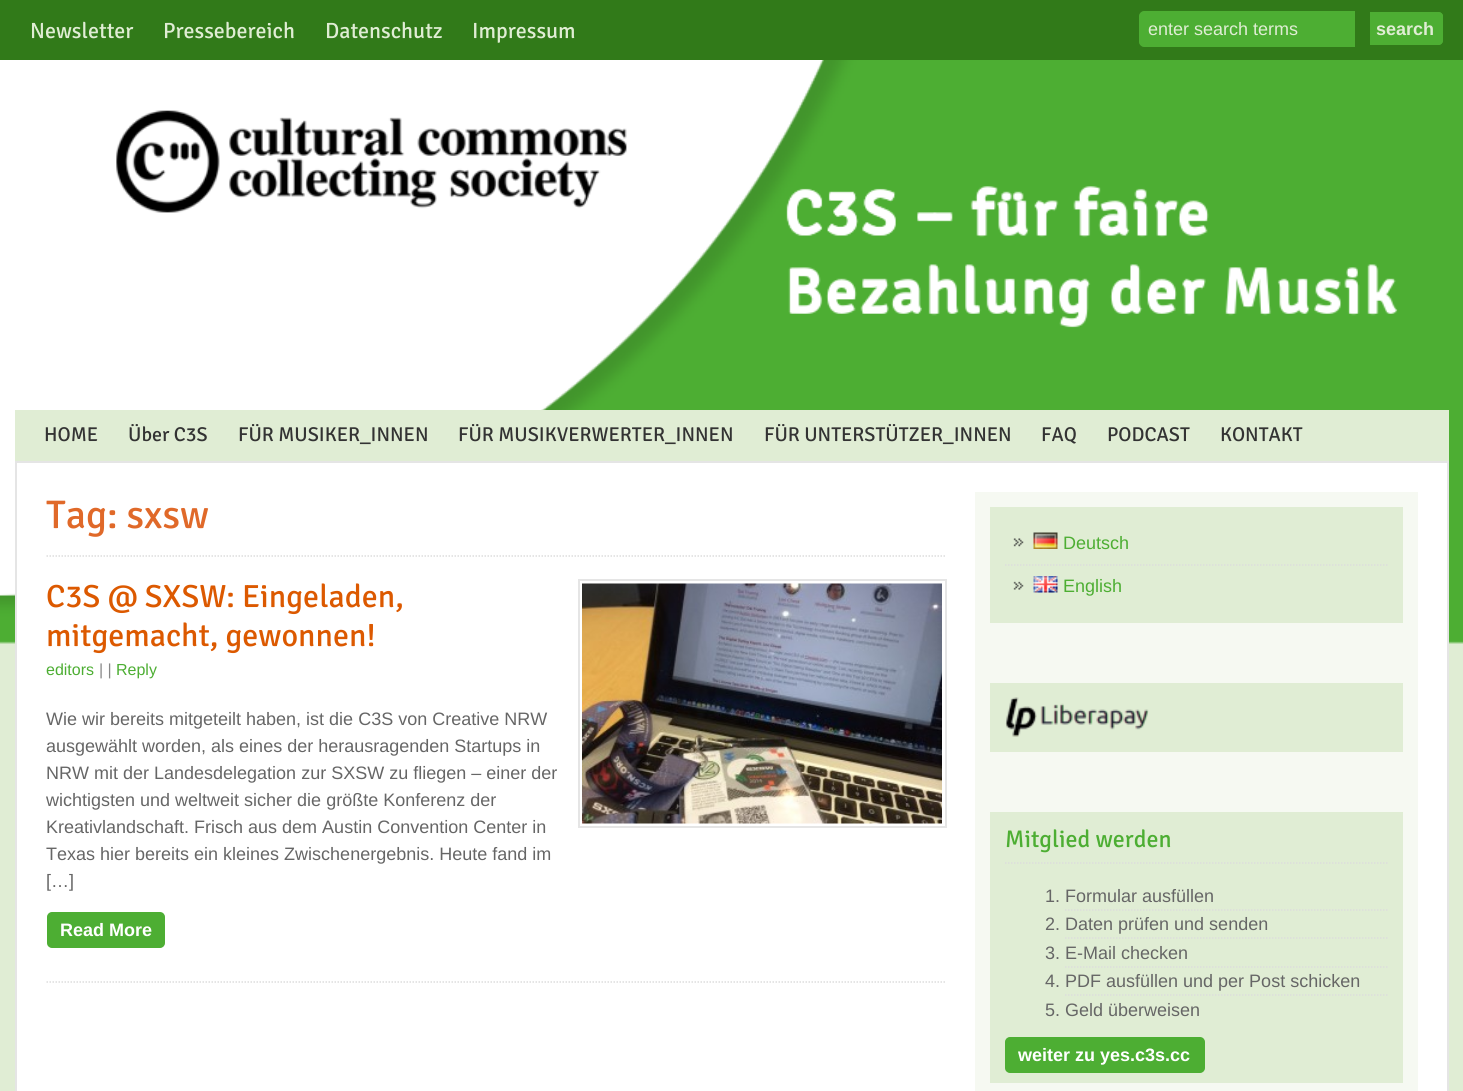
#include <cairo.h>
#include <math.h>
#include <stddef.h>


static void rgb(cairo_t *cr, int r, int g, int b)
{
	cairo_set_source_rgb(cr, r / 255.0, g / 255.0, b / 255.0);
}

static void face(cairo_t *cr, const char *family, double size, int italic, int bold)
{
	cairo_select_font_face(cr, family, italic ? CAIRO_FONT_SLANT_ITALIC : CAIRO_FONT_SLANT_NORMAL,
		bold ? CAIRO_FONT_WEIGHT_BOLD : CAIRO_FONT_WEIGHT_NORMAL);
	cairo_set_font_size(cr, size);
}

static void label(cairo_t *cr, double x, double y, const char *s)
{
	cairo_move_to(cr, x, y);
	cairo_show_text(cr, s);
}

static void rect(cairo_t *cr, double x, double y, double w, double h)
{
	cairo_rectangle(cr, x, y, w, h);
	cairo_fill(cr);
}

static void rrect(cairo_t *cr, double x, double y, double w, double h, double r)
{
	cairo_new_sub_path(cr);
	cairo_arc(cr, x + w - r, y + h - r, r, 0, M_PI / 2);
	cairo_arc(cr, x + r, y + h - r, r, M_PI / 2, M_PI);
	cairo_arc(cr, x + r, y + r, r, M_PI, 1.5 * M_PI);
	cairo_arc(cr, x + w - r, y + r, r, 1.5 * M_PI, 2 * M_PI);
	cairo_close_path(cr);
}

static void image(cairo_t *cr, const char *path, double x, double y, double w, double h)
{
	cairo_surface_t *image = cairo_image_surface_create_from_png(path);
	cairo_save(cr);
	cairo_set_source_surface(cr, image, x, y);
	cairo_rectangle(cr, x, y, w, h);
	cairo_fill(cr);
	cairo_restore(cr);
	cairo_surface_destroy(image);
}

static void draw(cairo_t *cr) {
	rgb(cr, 224, 237, 212);
	cairo_paint(cr);
	image(cr, "image0.png", 0, 60, 1463, 584);
	rgb(cr, 49, 122, 25);
	rect(cr, 0, 0, 1463, 60);
	face(cr, "Signika", 22, 0, 0);
	rgb(cr, 224, 237, 212);
	label(cr, 30, 38, "Newsletter");
	label(cr, 163, 38, "Pressebereich");
	label(cr, 325, 38, "Datenschutz");
	label(cr, 472, 38, "Impressum");
	rgb(cr, 77, 174, 51);
	cairo_new_path(cr);
	cairo_move_to(cr, 1144, 12);
	cairo_line_to(cr, 1354, 12);
	cairo_line_to(cr, 1354, 46);
	cairo_line_to(cr, 1144, 46);
	cairo_curve_to(cr, 1142, 46, 1140, 44, 1140, 42);
	cairo_line_to(cr, 1140, 16);
	cairo_curve_to(cr, 1140, 14, 1142, 12, 1144, 12);
	cairo_close_path(cr);
	cairo_fill_preserve(cr);
	cairo_stroke(cr);
	face(cr, "Liberation Sans", 18, 0, 0);
	rgb(cr, 224, 237, 212);
	label(cr, 1148, 35, "enter search terms");
	rgb(cr, 77, 174, 51);
	cairo_new_path(cr);
	cairo_move_to(cr, 1370, 12);
	cairo_line_to(cr, 1438, 12);
	cairo_curve_to(cr, 1441, 12, 1443, 14, 1443, 17);
	cairo_line_to(cr, 1443, 40);
	cairo_curve_to(cr, 1443, 43, 1441, 45, 1438, 45);
	cairo_line_to(cr, 1370, 45);
	cairo_close_path(cr);
	cairo_fill(cr);
	cairo_set_fill_rule(cr, CAIRO_FILL_RULE_EVEN_ODD);
	cairo_new_path(cr);
	cairo_move_to(cr, 1370, 12);
	cairo_line_to(cr, 1438, 12);
	cairo_curve_to(cr, 1441, 12, 1443, 14, 1443, 16);
	cairo_line_to(cr, 1443, 40);
	cairo_curve_to(cr, 1443, 43, 1441, 45, 1438, 45);
	cairo_line_to(cr, 1370, 45);
	cairo_close_path(cr);
	cairo_move_to(cr, 1370, 14);
	cairo_line_to(cr, 1438, 14);
	cairo_curve_to(cr, 1440, 14, 1442, 15, 1442, 16);
	cairo_line_to(cr, 1442, 40);
	cairo_curve_to(cr, 1442, 42, 1440, 44, 1438, 44);
	cairo_line_to(cr, 1370, 44);
	cairo_close_path(cr);
	cairo_fill(cr);
	face(cr, "Liberation Sans", 18, 0, 1);
	rgb(cr, 224, 237, 212);
	label(cr, 1376, 35, "search");
	image(cr, "image1.png", 116, 110, 1282, 218);
	rect(cr, 15, 410, 1434, 51);
	face(cr, "Signika", 20, 0, 0);
	rgb(cr, 51, 51, 51);
	label(cr, 44, 441, "HOME");
	label(cr, 128, 441, "Über C3S");
	label(cr, 238, 441, "FÜR MUSIKER_INNEN");
	label(cr, 458, 441, "FÜR MUSIKVERWERTER_INNEN");
	label(cr, 764, 441, "FÜR UNTERSTÜTZER_INNEN");
	label(cr, 1041, 441, "FAQ");
	label(cr, 1107, 441, "PODCAST");
	label(cr, 1220, 441, "KONTAKT");
	rgb(cr, 255, 255, 255);
	cairo_rectangle(cr, 16, 462, 1432, 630);
	cairo_fill_preserve(cr);
	rgb(cr, 229, 229, 229);
	cairo_stroke(cr);
	cairo_new_path(cr);
	cairo_move_to(cr, 46.5, 556);
	cairo_line_to(cr, 946.5, 556);
	rgb(cr, 221, 221, 221);
	cairo_set_line_width(cr, 1.5);
	cairo_set_dash(cr, (double[]){1.5, 1.5}, 2, 0);
	cairo_stroke(cr);
	face(cr, "Signika", 40, 0, 0);
	rgb(cr, 224, 105, 41);
	label(cr, 46, 528, "Tag: sxsw");
	cairo_new_path(cr);
	cairo_move_to(cr, 46.5, 982);
	cairo_line_to(cr, 946.5, 982);
	rgb(cr, 221, 221, 221);
	cairo_stroke(cr);
	face(cr, "Signika", 32, 0, 0);
	rgb(cr, 220, 89, 0);
	label(cr, 46, 607, "C3S @ SXSW: Eingeladen,");
	label(cr, 46, 646, "mitgemacht, gewonnen!");
	cairo_rectangle(cr, 579, 580, 367, 247);
	rgb(cr, 229, 229, 229);
	cairo_set_line_width(cr, 2);
	cairo_set_dash(cr, NULL, 0, 0);
	cairo_stroke(cr);
	image(cr, "image2.png", 582, 583, 360, 241);
	face(cr, "Liberation Sans", 16, 0, 0);
	rgb(cr, 77, 174, 51);
	label(cr, 46, 675, "editors");
	rgb(cr, 136, 136, 136);
	label(cr, 99, 675, "| |");
	rgb(cr, 77, 174, 51);
	label(cr, 116, 675, "Reply");
	face(cr, "Liberation Sans", 18, 0, 0);
	rgb(cr, 102, 102, 102);
	label(cr, 46, 725, "Wie wir bereits mitgeteilt haben, ist die C3S von Creative NRW");
	label(cr, 46, 752, "ausgewählt worden, als eines der herausragenden Startups in");
	label(cr, 46, 779, "NRW mit der Landesdelegation zur SXSW zu fliegen – einer der");
	label(cr, 46, 806, "wichtigsten und weltweit sicher die größte Konferenz der");
	label(cr, 46, 833, "Kreativlandschaft. Frisch aus dem Austin Convention Center in");
	label(cr, 46, 860, "Texas hier bereits ein kleines Zwischenergebnis. Heute fand im");
	label(cr, 46, 887, "[…]");
	rgb(cr, 77, 174, 51);
	rrect(cr, 48, 913, 116, 34, 4);
	cairo_fill_preserve(cr);
	cairo_stroke(cr);
	face(cr, "Liberation Sans", 18, 0, 1);
	rgb(cr, 255, 255, 255);
	label(cr, 60, 936, "Read More");
	rgb(cr, 246, 249, 242);
	rect(cr, 975, 492, 443, 599);
	rgb(cr, 224, 237, 212);
	rect(cr, 990, 507, 413, 116);
	image(cr, "image3.png", 1013, 538, 11, 9);
	cairo_new_path(cr);
	cairo_move_to(cr, 1005, 565);
	cairo_line_to(cr, 1387.5, 565);
	rgb(cr, 221, 221, 221);
	cairo_set_line_width(cr, 1.5);
	cairo_set_dash(cr, (double[]){1.5, 1.5}, 2, 0);
	cairo_stroke(cr);
	image(cr, "image4.png", 1033, 532, 25, 17);
	face(cr, "Liberation Sans", 18, 0, 0);
	rgb(cr, 77, 174, 51);
	label(cr, 1063, 549, "Deutsch");
	image(cr, "image5.png", 1013, 581, 11, 9);
	image(cr, "image6.png", 1033, 576, 25, 17);
	label(cr, 1063, 592, "English");
	rgb(cr, 224, 237, 212);
	rect(cr, 990, 683, 413, 69);
	image(cr, "image7.png", 1005, 697, 144, 40);
	rect(cr, 990, 812, 413, 271);
	cairo_new_path(cr);
	cairo_move_to(cr, 1005, 863);
	cairo_line_to(cr, 1387.5, 863);
	rgb(cr, 221, 221, 221);
	cairo_stroke(cr);
	face(cr, "Signika", 24, 0, 0);
	rgb(cr, 77, 174, 51);
	label(cr, 1005, 847, "Mitglied werden");
	cairo_new_path(cr);
	cairo_move_to(cr, 1065, 910);
	cairo_line_to(cr, 1387.5, 910);
	rgb(cr, 221, 221, 221);
	cairo_stroke(cr);
	face(cr, "Liberation Sans", 18, 0, 0);
	rgb(cr, 102, 102, 102);
	label(cr, 1045, 902, "1. Formular ausfüllen");
	cairo_new_path(cr);
	cairo_move_to(cr, 1065, 938);
	cairo_line_to(cr, 1387.5, 938);
	rgb(cr, 221, 221, 221);
	cairo_stroke(cr);
	rgb(cr, 102, 102, 102);
	label(cr, 1045, 930, "2. Daten prüfen und senden");
	cairo_new_path(cr);
	cairo_move_to(cr, 1065, 967);
	cairo_line_to(cr, 1387.5, 967);
	rgb(cr, 221, 221, 221);
	cairo_stroke(cr);
	rgb(cr, 102, 102, 102);
	label(cr, 1045, 959, "3. E-Mail checken");
	cairo_new_path(cr);
	cairo_move_to(cr, 1065, 995);
	cairo_line_to(cr, 1387.5, 995);
	rgb(cr, 221, 221, 221);
	cairo_stroke(cr);
	rgb(cr, 102, 102, 102);
	label(cr, 1045, 987, "4. PDF ausfüllen und per Post schicken");
	label(cr, 1045, 1016, "5. Geld überweisen");
	rgb(cr, 77, 174, 51);
	rrect(cr, 1006, 1038, 198, 34, 4);
	cairo_fill_preserve(cr);
	cairo_set_line_width(cr, 2);
	cairo_set_dash(cr, NULL, 0, 0);
	cairo_stroke(cr);
	face(cr, "Liberation Sans", 18, 0, 1);
	rgb(cr, 255, 255, 255);
	label(cr, 1018, 1061, "weiter zu yes.c3s.cc");
}

int main(void) {
	cairo_surface_t *surface = cairo_image_surface_create(CAIRO_FORMAT_RGB24, 1463, 1091);
	cairo_t *cr = cairo_create(surface);
	cairo_font_options_t *options = cairo_font_options_create();
	cairo_font_options_set_hint_metrics(options, CAIRO_HINT_METRICS_OFF);
	cairo_font_options_set_hint_style(options, CAIRO_HINT_STYLE_NONE);
	cairo_set_font_options(cr, options);
	cairo_set_miter_limit(cr, 4);
	draw(cr);
	cairo_surface_write_to_png(surface, "render.png");
	cairo_font_options_destroy(options);
	cairo_destroy(cr);
	cairo_surface_destroy(surface);
	return 0;
}
